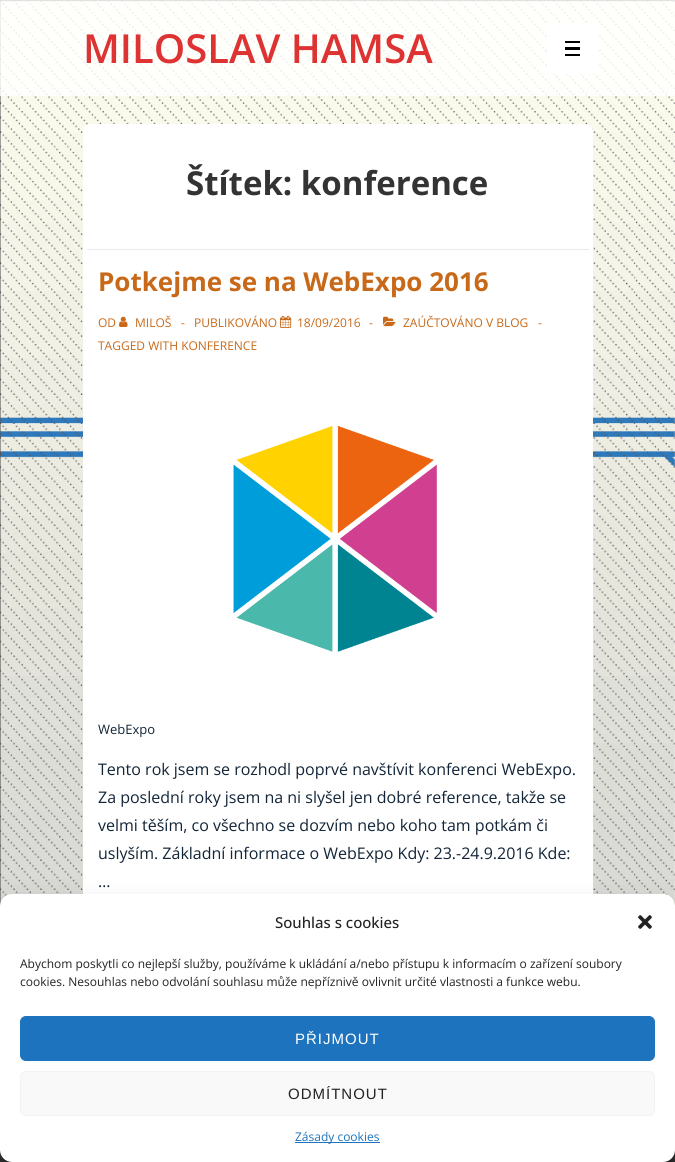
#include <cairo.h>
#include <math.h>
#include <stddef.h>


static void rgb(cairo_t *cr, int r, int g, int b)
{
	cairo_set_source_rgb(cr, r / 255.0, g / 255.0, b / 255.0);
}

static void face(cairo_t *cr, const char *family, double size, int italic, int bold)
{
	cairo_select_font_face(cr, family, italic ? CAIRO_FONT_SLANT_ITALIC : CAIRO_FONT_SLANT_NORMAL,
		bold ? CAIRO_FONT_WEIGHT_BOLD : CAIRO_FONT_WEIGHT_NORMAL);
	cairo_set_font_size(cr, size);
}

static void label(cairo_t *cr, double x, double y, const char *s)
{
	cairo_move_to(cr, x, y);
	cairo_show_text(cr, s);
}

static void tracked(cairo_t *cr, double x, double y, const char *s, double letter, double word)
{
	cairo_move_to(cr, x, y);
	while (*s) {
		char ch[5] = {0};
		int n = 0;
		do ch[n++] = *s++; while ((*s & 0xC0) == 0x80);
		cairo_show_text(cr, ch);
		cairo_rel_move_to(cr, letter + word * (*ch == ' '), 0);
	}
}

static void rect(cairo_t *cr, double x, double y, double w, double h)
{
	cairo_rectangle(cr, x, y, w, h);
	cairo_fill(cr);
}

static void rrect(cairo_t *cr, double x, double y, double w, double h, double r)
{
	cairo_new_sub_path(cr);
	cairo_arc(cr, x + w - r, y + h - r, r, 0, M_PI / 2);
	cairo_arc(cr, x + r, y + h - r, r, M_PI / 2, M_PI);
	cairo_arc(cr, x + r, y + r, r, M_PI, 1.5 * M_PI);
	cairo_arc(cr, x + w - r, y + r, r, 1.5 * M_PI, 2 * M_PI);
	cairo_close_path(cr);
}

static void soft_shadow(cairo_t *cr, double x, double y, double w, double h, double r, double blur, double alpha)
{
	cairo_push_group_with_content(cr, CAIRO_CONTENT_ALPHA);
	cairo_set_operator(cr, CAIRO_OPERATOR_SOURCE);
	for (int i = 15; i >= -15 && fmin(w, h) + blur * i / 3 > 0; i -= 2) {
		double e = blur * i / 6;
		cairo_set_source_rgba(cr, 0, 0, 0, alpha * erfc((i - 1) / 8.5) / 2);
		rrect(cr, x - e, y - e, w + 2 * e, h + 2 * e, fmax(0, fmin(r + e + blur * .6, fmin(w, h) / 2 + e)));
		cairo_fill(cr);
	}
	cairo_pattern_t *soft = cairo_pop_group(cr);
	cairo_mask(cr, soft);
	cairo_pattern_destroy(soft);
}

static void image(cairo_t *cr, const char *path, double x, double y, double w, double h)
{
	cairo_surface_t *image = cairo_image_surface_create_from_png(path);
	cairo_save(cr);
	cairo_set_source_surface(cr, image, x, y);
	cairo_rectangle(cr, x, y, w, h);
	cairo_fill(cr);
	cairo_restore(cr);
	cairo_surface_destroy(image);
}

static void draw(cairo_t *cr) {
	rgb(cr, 255, 255, 255);
	cairo_paint(cr);
	image(cr, "image0.png", 0, 0, 675, 906);
	cairo_set_source_rgba(cr, 1, 1, 1, 0.82);
	rect(cr, 0, 0, 675, 96);
	face(cr, "Open Sans SemiBold", 40, 0, 0);
	rgb(cr, 221, 51, 51);
	label(cr, 83, 63, "MILOSLAV HAMSA");
	rgb(cr, 255, 255, 255);
	rect(cr, 547, 23, 51, 51);
	rgb(cr, 0, 0, 0);
	rect(cr, 565, 41, 15, 2);
	rect(cr, 565, 47, 15, 3);
	rect(cr, 565, 54, 15, 2);
	rgb(cr, 255, 255, 255);
	rrect(cr, 83, 124, 510, 857, 8);
	cairo_fill(cr);
	rrect(cr, 83, 124, 510, 126, 8);
	cairo_fill(cr);
	rgb(cr, 234, 234, 234);
	rect(cr, 87, 249, 502, 1);
	face(cr, "Open Sans", 33, 0, 1);
	rgb(cr, 51, 51, 51);
	label(cr, 186, 195, "Štítek: konference");
	face(cr, "Open Sans", 26, 0, 1);
	rgb(cr, 199, 105, 25);
	label(cr, 98, 291, "Potkejme se na WebExpo 2016");
	face(cr, "Open Sans", 12, 0, 0);
	label(cr, 98, 327, "OD");
	image(cr, "image1.png", 119, 316, 9, 11);
	label(cr, 135, 327, "MILOŠ");
	label(cr, 181, 327, "-");
	label(cr, 194, 327, "PUBLIKOVÁNO");
	image(cr, "image2.png", 280, 315, 12, 13);
	label(cr, 297, 327, "18/09/2016");
	label(cr, 369, 327, "-");
	image(cr, "image3.png", 383, 316, 13, 11);
	label(cr, 403, 327, "ZAÚČTOVÁNO V BLOG");
	label(cr, 538, 327, "-");
	label(cr, 98, 350, "TAGGED WITH KONFERENCE");
	image(cr, "image4.png", 233, 425, 204, 227);
	face(cr, "Open Sans", 13, 0, 0);
	rgb(cr, 18, 37, 56);
	label(cr, 98, 734, "WebExpo");
	face(cr, "Open Sans", 16, 0, 0);
	label(cr, 98, 775, "Tento rok jsem se rozhodl poprvé navštívit konferenci WebExpo.");
	label(cr, 98, 803, "Za poslední roky jsem na ni slyšel jen dobré reference, takže se");
	label(cr, 98, 831, "velmi těším, co všechno se dozvím nebo koho tam potkám či");
	label(cr, 98, 859, "uslyším. Základní informace o WebExpo Kdy: 23.-24.9.2016 Kde:");
	label(cr, 98, 887, "…");
	rgb(cr, 51, 51, 51);
	rect(cr, 0, 1150, 675, 12);
	rgb(cr, 0, 0, 0);
	soft_shadow(cr, 0, 900, 675, 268, 12, 3, 0.23);
	soft_shadow(cr, 0, 904, 675, 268, 12, 10, 0.19);
	rgb(cr, 255, 255, 255);
	rrect(cr, 0, 894, 675, 268, 12);
	cairo_fill(cr);
	face(cr, "Open Sans Medium", 15, 0, 0);
	rgb(cr, 34, 34, 34);
	label(cr, 275, 928, "Souhlas s cookies");
	image(cr, "image5.png", 638, 915, 14, 14);
	face(cr, "Open Sans", 12, 0, 0);
	label(cr, 20, 968, "Abychom poskytli co nejlepší služby, používáme k ukládání a/nebo přístupu k informacím o zařízení soubory");
	label(cr, 20, 986, "cookies. Nesouhlas nebo odvolání souhlasu může nepříznivě ovlivnit určité vlastnosti a funkce webu.");
	rgb(cr, 30, 115, 190);
	rrect(cr, 20.5, 1016.5, 634, 44, 5.5);
	cairo_fill_preserve(cr);
	cairo_set_line_width(cr, 1);
	cairo_stroke(cr);
	face(cr, "Liberation Sans", 15, 0, 0);
	rgb(cr, 255, 255, 255);
	tracked(cr, 295, 1044, "PŘIJMOUT", 1, 0);
	rgb(cr, 249, 249, 249);
	rrect(cr, 20.5, 1071.5, 634, 44, 5.5);
	cairo_fill_preserve(cr);
	rgb(cr, 242, 242, 242);
	cairo_stroke(cr);
	rgb(cr, 34, 34, 34);
	tracked(cr, 288, 1099, "ODMÍTNOUT", 1, 0);
	rgb(cr, 30, 115, 190);
	rect(cr, 295, 1142, 85, 1);
	face(cr, "Open Sans", 12, 0, 0);
	label(cr, 295, 1141, "Zásady cookies");
}

int main(void) {
	cairo_surface_t *surface = cairo_image_surface_create(CAIRO_FORMAT_RGB24, 675, 1162);
	cairo_t *cr = cairo_create(surface);
	cairo_font_options_t *options = cairo_font_options_create();
	cairo_font_options_set_hint_metrics(options, CAIRO_HINT_METRICS_OFF);
	cairo_font_options_set_hint_style(options, CAIRO_HINT_STYLE_NONE);
	cairo_set_font_options(cr, options);
	cairo_set_miter_limit(cr, 4);
	draw(cr);
	cairo_surface_write_to_png(surface, "render.png");
	cairo_font_options_destroy(options);
	cairo_destroy(cr);
	cairo_surface_destroy(surface);
	return 0;
}
